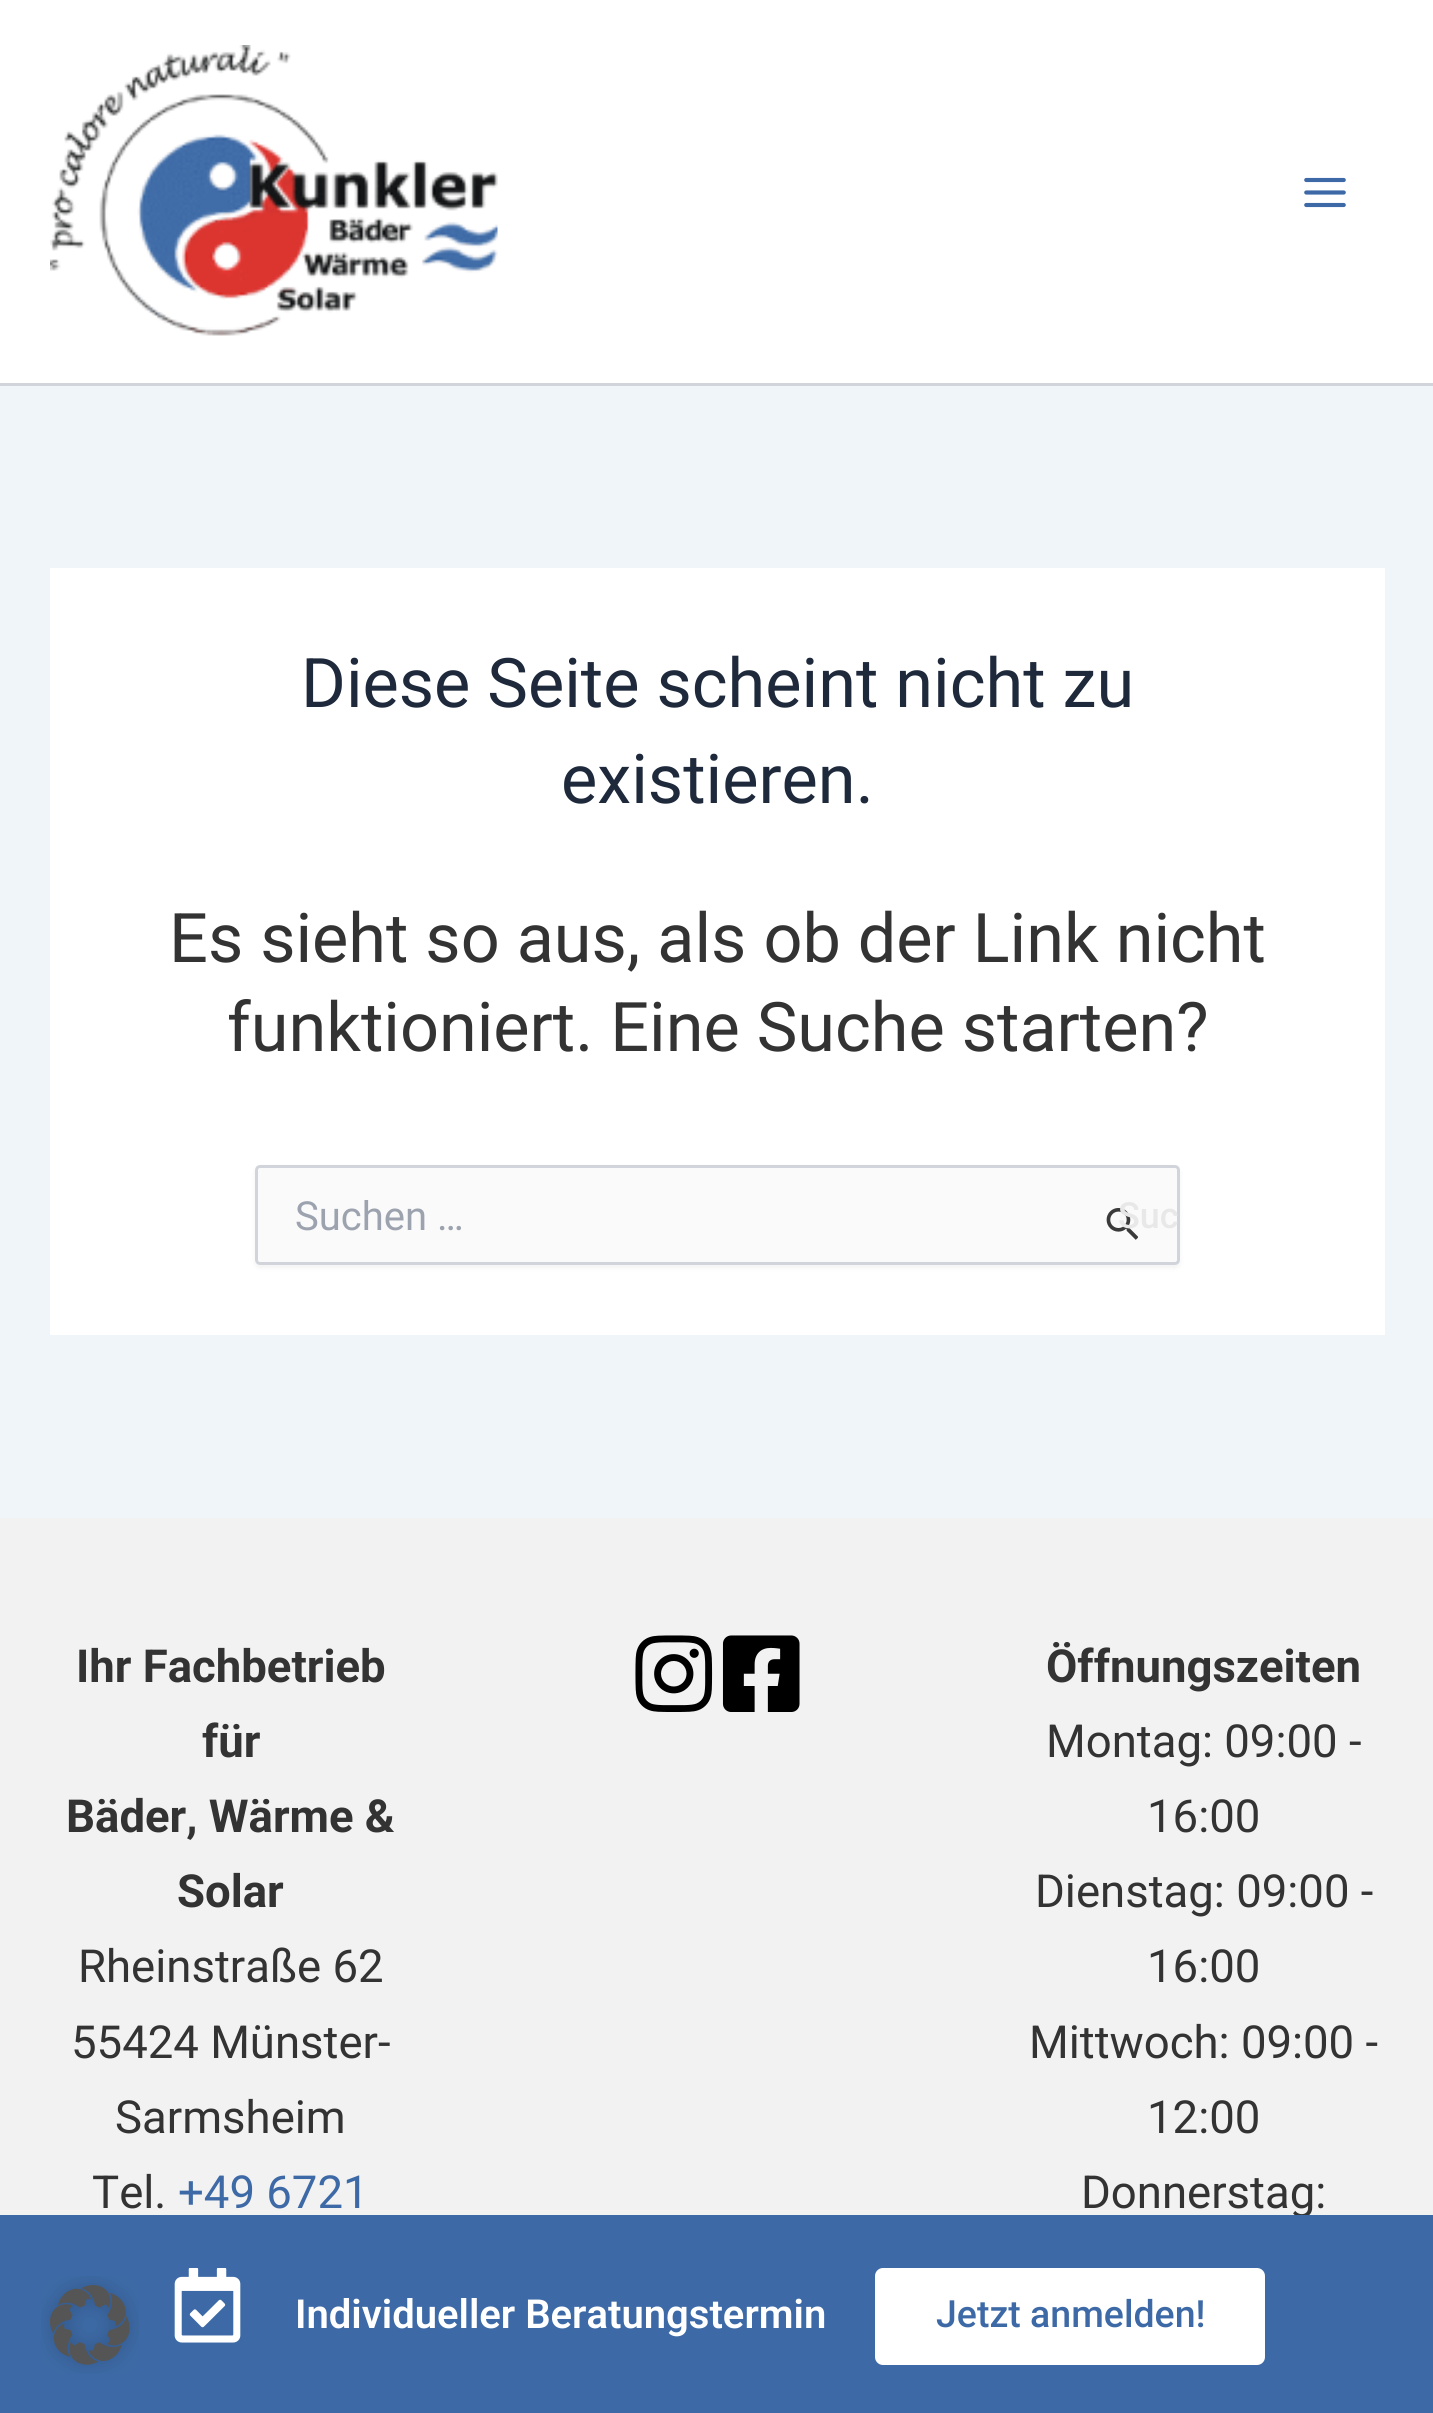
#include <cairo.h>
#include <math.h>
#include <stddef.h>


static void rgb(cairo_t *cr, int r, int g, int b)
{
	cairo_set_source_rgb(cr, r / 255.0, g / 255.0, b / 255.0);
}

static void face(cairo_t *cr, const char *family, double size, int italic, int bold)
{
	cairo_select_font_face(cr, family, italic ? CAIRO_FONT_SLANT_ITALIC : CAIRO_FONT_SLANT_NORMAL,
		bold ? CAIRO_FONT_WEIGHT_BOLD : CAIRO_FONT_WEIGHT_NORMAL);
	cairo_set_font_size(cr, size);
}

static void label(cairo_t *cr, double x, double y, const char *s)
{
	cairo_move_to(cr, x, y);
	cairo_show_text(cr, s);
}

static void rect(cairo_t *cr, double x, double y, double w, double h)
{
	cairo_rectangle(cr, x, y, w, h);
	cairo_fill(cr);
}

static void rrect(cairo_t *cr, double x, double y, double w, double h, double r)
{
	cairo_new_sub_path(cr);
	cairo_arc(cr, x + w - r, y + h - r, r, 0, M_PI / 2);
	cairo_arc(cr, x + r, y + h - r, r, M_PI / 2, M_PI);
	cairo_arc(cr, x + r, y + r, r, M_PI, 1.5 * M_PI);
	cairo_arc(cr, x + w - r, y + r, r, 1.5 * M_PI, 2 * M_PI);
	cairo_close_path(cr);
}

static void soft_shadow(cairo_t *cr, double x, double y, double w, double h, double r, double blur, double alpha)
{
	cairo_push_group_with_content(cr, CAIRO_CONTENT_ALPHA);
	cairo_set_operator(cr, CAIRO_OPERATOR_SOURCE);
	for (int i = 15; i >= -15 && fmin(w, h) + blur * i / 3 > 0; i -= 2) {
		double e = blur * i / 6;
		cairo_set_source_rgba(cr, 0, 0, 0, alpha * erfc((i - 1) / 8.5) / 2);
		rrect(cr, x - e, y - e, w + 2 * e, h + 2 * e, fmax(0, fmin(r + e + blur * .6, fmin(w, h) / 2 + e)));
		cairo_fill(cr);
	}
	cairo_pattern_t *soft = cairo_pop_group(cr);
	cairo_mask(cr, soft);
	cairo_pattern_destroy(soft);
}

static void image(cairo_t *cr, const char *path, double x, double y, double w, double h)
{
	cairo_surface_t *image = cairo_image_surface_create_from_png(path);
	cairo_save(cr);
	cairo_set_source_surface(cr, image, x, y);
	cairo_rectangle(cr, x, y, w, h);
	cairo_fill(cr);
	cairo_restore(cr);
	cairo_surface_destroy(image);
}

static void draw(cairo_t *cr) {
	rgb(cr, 240, 245, 250);
	cairo_paint(cr);
	rgb(cr, 255, 255, 255);
	rect(cr, 0, 0, 1433, 383);
	rgb(cr, 209, 213, 219);
	rect(cr, 0, 383, 1433, 3);
	image(cr, "image0.png", 50, 45, 448, 291);
	image(cr, "image1.png", 1304, 177, 42, 31);
	rgb(cr, 255, 255, 255);
	rect(cr, 50, 568, 1335, 767);
	face(cr, "Roboto", 68.4, 0, 0);
	rgb(cr, 30, 41, 59);
	label(cr, 301, 707, "Diese Seite scheint nicht zu");
	label(cr, 561, 803, "existieren.");
	rgb(cr, 51, 51, 51);
	label(cr, 169, 962, "Es sieht so aus, als ob der Link nicht");
	label(cr, 227, 1051, "funktioniert. Eine Suche starten?");
	rgb(cr, 0, 0, 0);
	soft_shadow(cr, 255, 1168, 925, 100, 5, 2.5, 0.05);
	rgb(cr, 250, 250, 250);
	rrect(cr, 256.5, 1166.5, 922, 97, 3.5);
	cairo_fill_preserve(cr);
	rgb(cr, 209, 213, 219);
	cairo_set_line_width(cr, 3);
	cairo_stroke(cr);
	face(cr, "Roboto", 40, 0, 0);
	rgb(cr, 156, 163, 175);
	label(cr, 295, 1230, "Suchen …");
	image(cr, "image2.png", 1106, 1207, 32, 33);
	face(cr, "Roboto Medium", 36, 0, 0);
	rgb(cr, 232, 232, 233);
	label(cr, 1118, 1228, "Suc");
	rgb(cr, 242, 242, 242);
	rect(cr, 0, 1518, 1433, 697);
	face(cr, "Roboto", 45.5, 0, 1);
	rgb(cr, 51, 51, 51);
	label(cr, 76, 1682, "Ihr Fachbetrieb");
	label(cr, 202, 1757, "für");
	label(cr, 66, 1832, "Bäder, Wärme &");
	label(cr, 177, 1907, "Solar");
	face(cr, "Roboto", 45.5, 0, 0);
	label(cr, 78, 1982, "Rheinstraße 62");
	label(cr, 71, 2058, "55424 Münster-");
	label(cr, 115, 2133, "Sarmsheim");
	label(cr, 92, 2208, "Tel.");
	rgb(cr, 61, 106, 166);
	label(cr, 178, 2208, "+49 6721");
	image(cr, "image3.png", 635, 1635, 78, 77);
	image(cr, "image4.png", 722, 1635, 78, 77);
	face(cr, "Roboto", 45.5, 0, 1);
	rgb(cr, 51, 51, 51);
	label(cr, 1046, 1682, "Öffnungszeiten");
	face(cr, "Roboto", 45.5, 0, 0);
	label(cr, 1046, 1757, "Montag: 09:00 -");
	label(cr, 1147, 1832, "16:00");
	label(cr, 1035, 1907, "Dienstag: 09:00 -");
	label(cr, 1147, 1982, "16:00");
	label(cr, 1029, 2058, "Mittwoch: 09:00 -");
	label(cr, 1147, 2133, "12:00");
	label(cr, 1081, 2208, "Donnerstag:");
	rgb(cr, 61, 106, 166);
	rect(cr, 0, 2215, 1433, 198);
	image(cr, "image5.png", 174, 2268, 67, 75);
	face(cr, "Roboto SemiBold", 40, 0, 0);
	rgb(cr, 255, 255, 255);
	label(cr, 295, 2328, "Individueller Beratungstermin");
	rrect(cr, 875, 2268, 390, 97, 8);
	cairo_fill(cr);
	face(cr, "Roboto Medium", 37.5, 0, 0);
	rgb(cr, 61, 106, 166);
	label(cr, 936, 2327, "Jetzt anmelden!");
	image(cr, "image6.png", 41, 2276, 98, 98);
}

int main(void) {
	cairo_surface_t *surface = cairo_image_surface_create(CAIRO_FORMAT_RGB24, 1433, 2413);
	cairo_t *cr = cairo_create(surface);
	cairo_font_options_t *options = cairo_font_options_create();
	cairo_font_options_set_hint_metrics(options, CAIRO_HINT_METRICS_OFF);
	cairo_font_options_set_hint_style(options, CAIRO_HINT_STYLE_NONE);
	cairo_set_font_options(cr, options);
	cairo_set_miter_limit(cr, 4);
	draw(cr);
	cairo_surface_write_to_png(surface, "render.png");
	cairo_font_options_destroy(options);
	cairo_destroy(cr);
	cairo_surface_destroy(surface);
	return 0;
}
